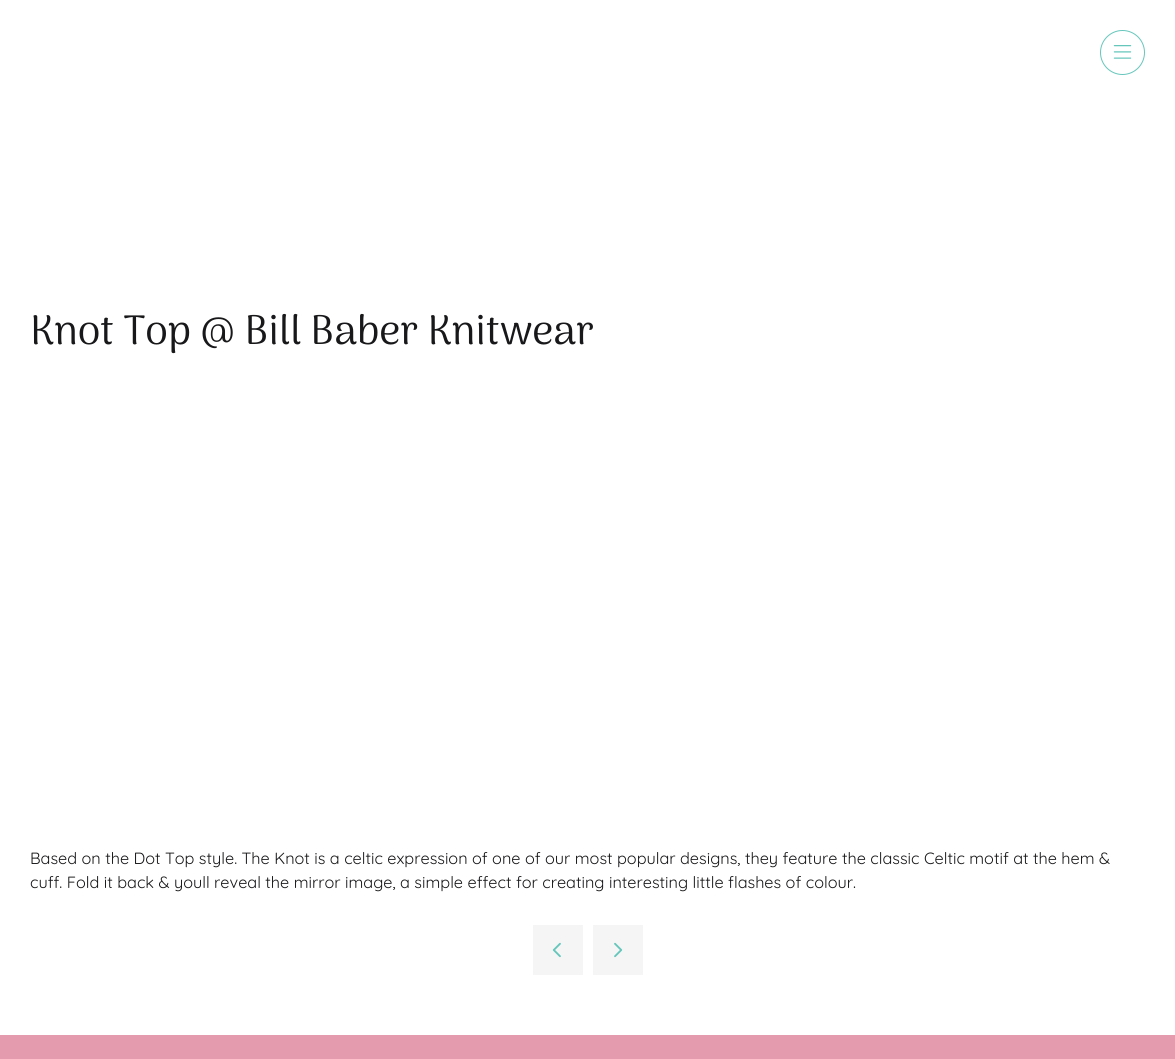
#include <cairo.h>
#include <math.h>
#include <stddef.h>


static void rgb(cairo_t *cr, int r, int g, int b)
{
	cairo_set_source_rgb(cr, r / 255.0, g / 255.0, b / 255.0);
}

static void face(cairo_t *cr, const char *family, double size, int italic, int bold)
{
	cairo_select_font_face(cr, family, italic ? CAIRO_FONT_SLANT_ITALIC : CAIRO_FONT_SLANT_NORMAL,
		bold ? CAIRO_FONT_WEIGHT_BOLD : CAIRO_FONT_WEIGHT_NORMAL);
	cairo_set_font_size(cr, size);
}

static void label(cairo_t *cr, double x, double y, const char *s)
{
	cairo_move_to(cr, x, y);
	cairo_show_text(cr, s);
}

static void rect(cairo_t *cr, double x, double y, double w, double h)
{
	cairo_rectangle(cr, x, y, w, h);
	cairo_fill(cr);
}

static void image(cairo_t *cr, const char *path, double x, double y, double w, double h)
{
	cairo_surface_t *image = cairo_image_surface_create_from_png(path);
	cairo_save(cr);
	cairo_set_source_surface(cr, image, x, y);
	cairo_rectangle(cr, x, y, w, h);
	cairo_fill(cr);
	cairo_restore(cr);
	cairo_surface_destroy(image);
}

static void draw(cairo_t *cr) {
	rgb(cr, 255, 255, 255);
	cairo_paint(cr);
	cairo_arc(cr, 1122.5, 52.5, 22, 0, 2 * M_PI);
	rgb(cr, 102, 198, 187);
	cairo_set_line_width(cr, 1);
	cairo_stroke(cr);
	image(cr, "image0.png", 1113, 45, 19, 14);
	face(cr, "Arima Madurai", 41.25, 0, 0);
	rgb(cr, 24, 24, 26);
	label(cr, 30, 344, "Knot Top @ Bill Baber Knitwear");
	face(cr, "Quicksand", 16.25, 0, 0);
	label(cr, 30, 864, "Based on the Dot Top style. The Knot is a celtic expression of one of our most popular designs, they feature the classic Celtic motif at the hem &");
	label(cr, 30, 888, "cuff. Fold it back & youll reveal the mirror image, a simple effect for creating interesting little flashes of colour.");
	rgb(cr, 245, 245, 245);
	rect(cr, 533, 925, 50, 50);
	image(cr, "image1.png", 552, 942, 9, 16);
	rect(cr, 593, 925, 50, 50);
	image(cr, "image2.png", 614, 942, 9, 16);
	rgb(cr, 228, 155, 174);
	rect(cr, 0, 1035, 1175, 24);
}

int main(void) {
	cairo_surface_t *surface = cairo_image_surface_create(CAIRO_FORMAT_RGB24, 1175, 1059);
	cairo_t *cr = cairo_create(surface);
	cairo_font_options_t *options = cairo_font_options_create();
	cairo_font_options_set_hint_metrics(options, CAIRO_HINT_METRICS_OFF);
	cairo_font_options_set_hint_style(options, CAIRO_HINT_STYLE_NONE);
	cairo_set_font_options(cr, options);
	cairo_set_miter_limit(cr, 4);
	draw(cr);
	cairo_surface_write_to_png(surface, "render.png");
	cairo_font_options_destroy(options);
	cairo_destroy(cr);
	cairo_surface_destroy(surface);
	return 0;
}
